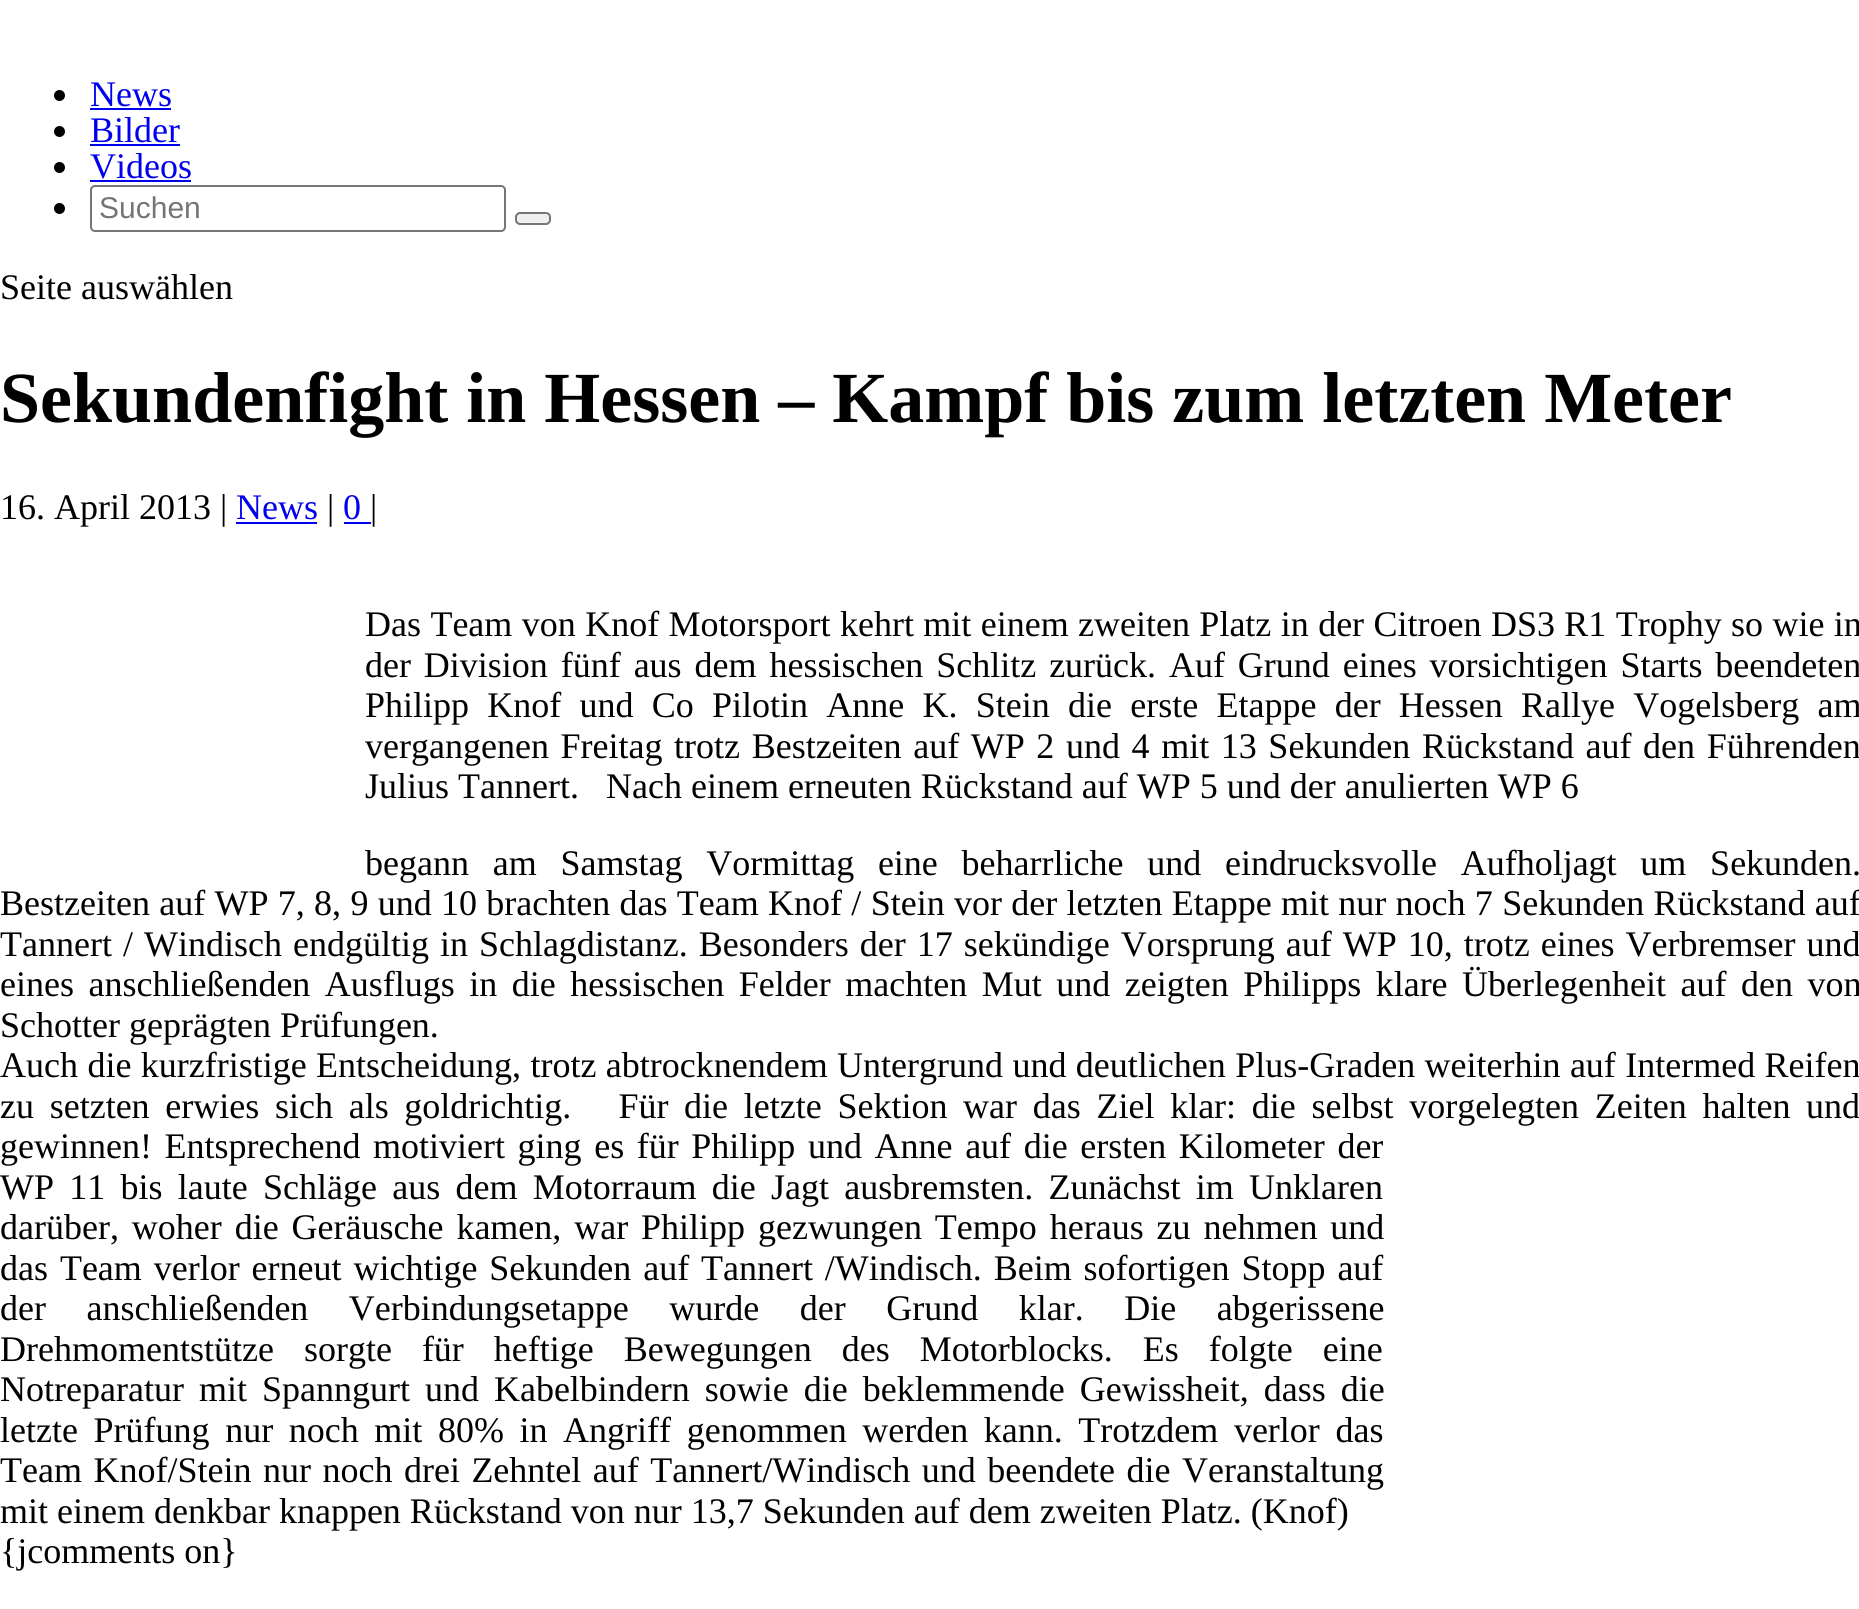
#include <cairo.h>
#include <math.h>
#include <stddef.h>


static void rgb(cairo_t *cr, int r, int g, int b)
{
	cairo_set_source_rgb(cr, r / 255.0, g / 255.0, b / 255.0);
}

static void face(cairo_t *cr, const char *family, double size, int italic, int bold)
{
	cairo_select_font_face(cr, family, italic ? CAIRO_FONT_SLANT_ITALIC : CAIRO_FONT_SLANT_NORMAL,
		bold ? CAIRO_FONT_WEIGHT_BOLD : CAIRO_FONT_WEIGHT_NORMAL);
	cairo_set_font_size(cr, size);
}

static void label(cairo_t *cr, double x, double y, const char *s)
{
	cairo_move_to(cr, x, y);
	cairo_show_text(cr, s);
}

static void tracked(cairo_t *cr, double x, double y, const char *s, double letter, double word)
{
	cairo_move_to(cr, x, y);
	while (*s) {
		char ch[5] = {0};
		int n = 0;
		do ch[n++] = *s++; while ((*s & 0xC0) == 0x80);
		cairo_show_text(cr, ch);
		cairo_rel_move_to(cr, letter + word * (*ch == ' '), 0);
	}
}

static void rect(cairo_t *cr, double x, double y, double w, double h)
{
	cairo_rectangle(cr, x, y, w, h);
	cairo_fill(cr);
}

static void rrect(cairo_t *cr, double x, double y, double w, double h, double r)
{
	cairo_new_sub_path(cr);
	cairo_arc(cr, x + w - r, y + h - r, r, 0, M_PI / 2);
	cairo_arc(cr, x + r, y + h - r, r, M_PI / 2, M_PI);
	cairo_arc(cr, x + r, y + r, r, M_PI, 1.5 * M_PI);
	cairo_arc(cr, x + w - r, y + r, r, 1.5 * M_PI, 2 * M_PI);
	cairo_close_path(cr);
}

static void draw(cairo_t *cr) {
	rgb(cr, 255, 255, 255);
	cairo_paint(cr);
	rgb(cr, 0, 0, 0);
	cairo_arc(cr, 59.5, 95.5, 5.5, 0, 2 * M_PI);
	cairo_fill(cr);
	face(cr, "Liberation Serif", 36, 0, 0);
	rgb(cr, 0, 0, 238);
	label(cr, 90, 106, "News");
	rect(cr, 90, 108, 81, 2);
	rgb(cr, 0, 0, 0);
	cairo_new_path(cr);
	cairo_arc(cr, 59.5, 131.5, 5.5, 0, 2 * M_PI);
	cairo_fill(cr);
	rgb(cr, 0, 0, 238);
	label(cr, 90, 142, "Bilder");
	rect(cr, 90, 144, 90, 2);
	rgb(cr, 0, 0, 0);
	cairo_new_path(cr);
	cairo_arc(cr, 59.5, 167.5, 5.5, 0, 2 * M_PI);
	cairo_fill(cr);
	rgb(cr, 0, 0, 238);
	label(cr, 90, 178, "Videos");
	rect(cr, 90, 180, 101, 2);
	rgb(cr, 0, 0, 0);
	cairo_new_path(cr);
	cairo_arc(cr, 59.5, 208.5, 5.5, 0, 2 * M_PI);
	cairo_fill(cr);
	rrect(cr, 91, 186, 414, 45, 4);
	rgb(cr, 118, 118, 118);
	cairo_stroke(cr);
	face(cr, "Liberation Sans", 30, 0, 0);
	rgb(cr, 117, 117, 117);
	label(cr, 99, 218, "Suchen");
	rgb(cr, 239, 239, 239);
	rrect(cr, 516, 213, 34, 11, 4);
	cairo_fill_preserve(cr);
	rgb(cr, 118, 118, 118);
	cairo_stroke(cr);
	face(cr, "Liberation Serif", 36, 0, 0);
	rgb(cr, 0, 0, 0);
	label(cr, 0, 299, "Seite auswählen");
	face(cr, "Liberation Serif", 72, 0, 1);
	label(cr, 0, 422, "Sekundenfight in Hessen – Kampf bis zum letzten Meter");
	face(cr, "Liberation Serif", 36, 0, 0);
	label(cr, 0, 519, "16. April 2013 |");
	rgb(cr, 0, 0, 238);
	label(cr, 236, 519, "News");
	rect(cr, 236, 522, 81, 2);
	rgb(cr, 0, 0, 0);
	label(cr, 327, 519, "|");
	rgb(cr, 0, 0, 238);
	label(cr, 343, 519, "0");
	rect(cr, 344, 522, 27, 2);
	rgb(cr, 0, 0, 0);
	label(cr, 370, 519, "|");
	tracked(cr, 365, 636, "Das Team von Knof Motorsport kehrt mit einem zweiten Platz in der Citroen DS3 R1 Trophy so wie in", 0, 0.4);
	tracked(cr, 365, 677, "der Division fünf aus dem hessischen Schlitz zurück. Auf Grund eines vorsichtigen Starts beendeten", 0, 3.9);
	tracked(cr, 365, 717, "Philipp Knof und Co Pilotin Anne K. Stein die erste Etappe der Hessen Rallye Vogelsberg am", 0, 9.25);
	tracked(cr, 365, 758, "vergangenen Freitag trotz Bestzeiten auf WP 2 und 4 mit 13 Sekunden Rückstand auf den Führenden", 0, 2.6);
	label(cr, 365, 798, "Julius Tannert.   Nach einem erneuten Rückstand auf WP 5 und der anulierten WP 6");
	tracked(cr, 365, 875, "begann am Samstag Vormittag eine beharrliche und eindrucksvolle Aufholjagt um Sekunden.", 0, 14.75);
	tracked(cr, 0, 915, "Bestzeiten auf WP 7, 8, 9 und 10 brachten das Team Knof / Stein vor der letzten Etappe mit nur noch 7 Sekunden Rückstand auf", 0, 0.3);
	tracked(cr, 0, 956, "Tannert / Windisch endgültig in Schlagdistanz. Besonders der 17 sekündige Vorsprung auf WP 10, trotz eines Verbremser und", 0, 2);
	tracked(cr, 0, 996, "eines anschließenden Ausflugs in die hessischen Felder machten Mut und zeigten Philipps klare Überlegenheit auf den von", 0, 5.5);
	label(cr, 0, 1037, "Schotter geprägten Prüfungen.");
	tracked(cr, 0, 1077, "Auch die kurzfristige Entscheidung, trotz abtrocknendem Untergrund und deutlichen Plus-Graden weiterhin auf Intermed Reifen", 0, 0.4);
	tracked(cr, 0, 1118, "zu setzten erwies sich als goldrichtig.   Für die letzte Sektion war das Ziel klar: die selbst vorgelegten Zeiten halten und", 0, 6.7);
	tracked(cr, 0, 1158, "gewinnen! Entsprechend", 0, 3.6);
	tracked(cr, 373, 1158, "motiviert ging es für Philipp und Anne auf die ersten Kilometer der", 0, 3.6);
	tracked(cr, 0, 1199, "WP 11 bis laute Schläge aus dem Motorraum die Jagt ausbremsten. Zunächst im Unklaren", 0, 6.25);
	tracked(cr, 0, 1239, "darüber, woher die Geräusche kamen, war Philipp gezwungen Tempo heraus zu nehmen und", 0, 3.9);
	tracked(cr, 0, 1280, "das Team verlor erneut wichtige Sekunden auf Tannert /Windisch. Beim sofortigen Stopp auf", 0, 2.9);
	tracked(cr, 0, 1320, "der anschließenden Verbindungsetappe wurde der Grund klar. Die abgerissene", 0, 31.5);
	tracked(cr, 0, 1361, "Drehmomentstütze sorgte für heftige Bewegungen des Motorblocks. Es folgte eine", 0, 21);
	tracked(cr, 0, 1401, "Notreparatur mit Spanngurt und Kabelbindern sowie die beklemmende Gewissheit, dass die", 0, 6);
	tracked(cr, 0, 1442, "letzte Prüfung nur noch mit 80% in Angriff genommen werden kann. Trotzdem verlor das", 0, 6.6);
	tracked(cr, 0, 1482, "Team Knof/Stein nur noch drei Zehntel auf Tannert/Windisch und beendete die Veranstaltung", 0, 2.5);
	label(cr, 0, 1523, "mit einem denkbar knappen Rückstand von nur 13,7 Sekunden auf dem zweiten Platz. (Knof)");
	label(cr, 0, 1563, "{jcomments on}");
}

int main(void) {
	cairo_surface_t *surface = cairo_image_surface_create(CAIRO_FORMAT_RGB24, 1859, 1609);
	cairo_t *cr = cairo_create(surface);
	cairo_font_options_t *options = cairo_font_options_create();
	cairo_font_options_set_hint_metrics(options, CAIRO_HINT_METRICS_OFF);
	cairo_font_options_set_hint_style(options, CAIRO_HINT_STYLE_NONE);
	cairo_set_font_options(cr, options);
	cairo_set_miter_limit(cr, 4);
	draw(cr);
	cairo_surface_write_to_png(surface, "render.png");
	cairo_font_options_destroy(options);
	cairo_destroy(cr);
	cairo_surface_destroy(surface);
	return 0;
}
